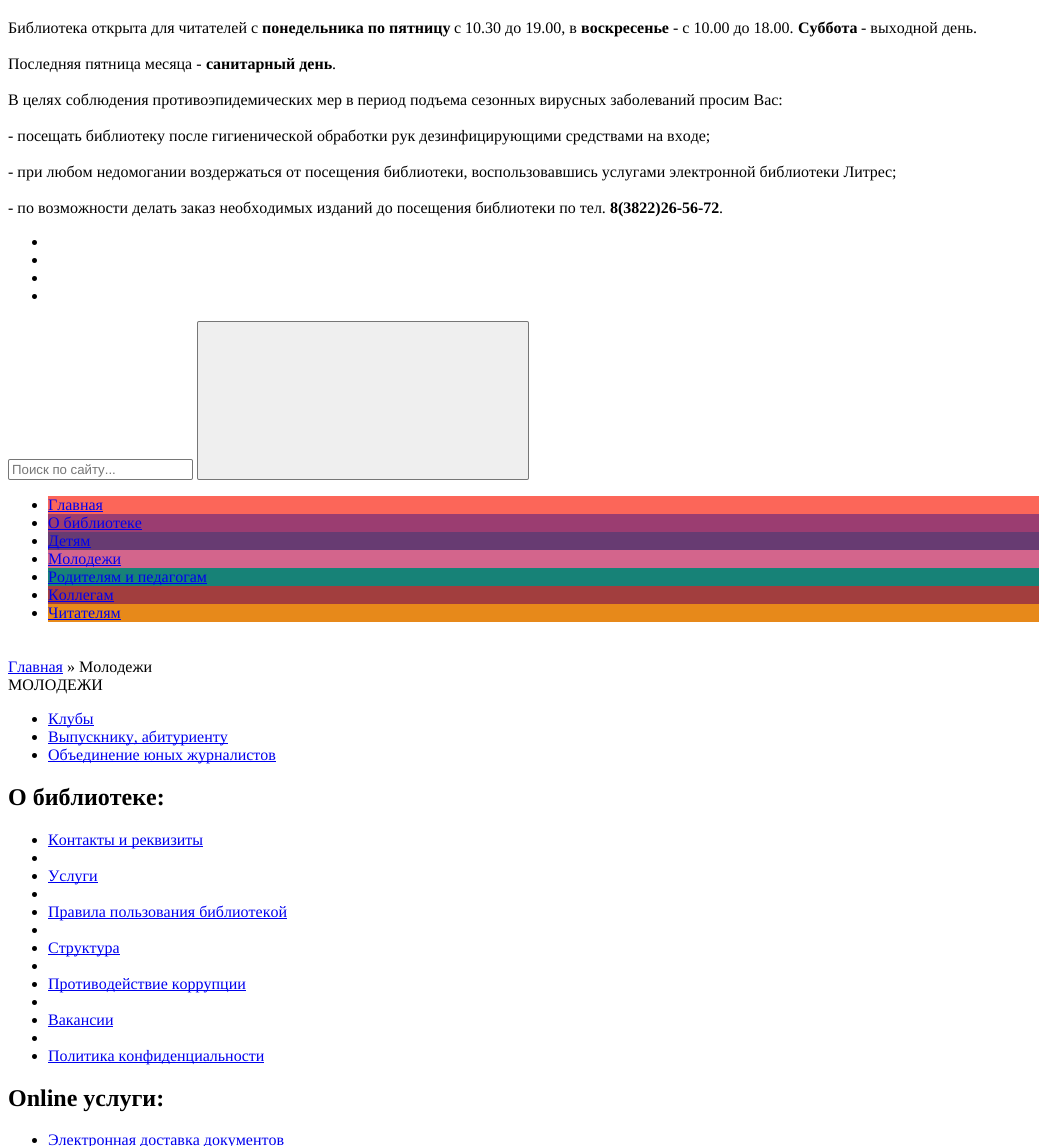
#include <cairo.h>
#include <math.h>
#include <stddef.h>


static void rgb(cairo_t *cr, int r, int g, int b)
{
	cairo_set_source_rgb(cr, r / 255.0, g / 255.0, b / 255.0);
}

static void face(cairo_t *cr, const char *family, double size, int italic, int bold)
{
	cairo_select_font_face(cr, family, italic ? CAIRO_FONT_SLANT_ITALIC : CAIRO_FONT_SLANT_NORMAL,
		bold ? CAIRO_FONT_WEIGHT_BOLD : CAIRO_FONT_WEIGHT_NORMAL);
	cairo_set_font_size(cr, size);
}

static void label(cairo_t *cr, double x, double y, const char *s)
{
	cairo_move_to(cr, x, y);
	cairo_show_text(cr, s);
}

static void rect(cairo_t *cr, double x, double y, double w, double h)
{
	cairo_rectangle(cr, x, y, w, h);
	cairo_fill(cr);
}

static void rrect(cairo_t *cr, double x, double y, double w, double h, double r)
{
	cairo_new_sub_path(cr);
	cairo_arc(cr, x + w - r, y + h - r, r, 0, M_PI / 2);
	cairo_arc(cr, x + r, y + h - r, r, M_PI / 2, M_PI);
	cairo_arc(cr, x + r, y + r, r, M_PI, 1.5 * M_PI);
	cairo_arc(cr, x + w - r, y + r, r, 1.5 * M_PI, 2 * M_PI);
	cairo_close_path(cr);
}

static void draw(cairo_t *cr) {
	rgb(cr, 255, 255, 255);
	cairo_paint(cr);
	face(cr, "Liberation Serif", 16, 0, 0);
	rgb(cr, 0, 0, 0);
	label(cr, 8, 33, "Библиотека открыта для читателей с");
	face(cr, "Liberation Serif", 16, 0, 1);
	label(cr, 262, 33, "понедельника по пятницу");
	face(cr, "Liberation Serif", 16, 0, 0);
	label(cr, 454, 33, "с 10.30 до 19.00, в");
	face(cr, "Liberation Serif", 16, 0, 1);
	label(cr, 581, 33, "воскресенье");
	face(cr, "Liberation Serif", 16, 0, 0);
	label(cr, 673, 33, "- с 10.00 до 18.00.");
	face(cr, "Liberation Serif", 16, 0, 1);
	label(cr, 798, 33, "Суббота");
	face(cr, "Liberation Serif", 16, 0, 0);
	label(cr, 861, 33, "- выходной день.");
	label(cr, 8, 69, "Последняя пятница месяца -");
	face(cr, "Liberation Serif", 16, 0, 1);
	label(cr, 206, 69, "санитарный день");
	face(cr, "Liberation Serif", 16, 0, 0);
	label(cr, 332, 69, ".");
	label(cr, 8, 105, "В целях соблюдения противоэпидемических мер в период подъема сезонных вирусных заболеваний просим Вас:");
	label(cr, 8, 141, "- посещать библиотеку после гигиенической обработки рук дезинфицирующими средствами на входе;");
	label(cr, 8, 177, "- при любом недомогании воздержаться от посещения библиотеки, воспользовавшись услугами электронной библиотеки Литрес;");
	label(cr, 8, 213, "- по возможности делать заказ необходимых изданий до посещения библиотеки по тел.");
	face(cr, "Liberation Serif", 16, 0, 1);
	label(cr, 610, 213, "8(3822)26-56-72");
	face(cr, "Liberation Serif", 16, 0, 0);
	label(cr, 719, 213, ".");
	cairo_new_path(cr);
	cairo_arc(cr, 34.5, 242.5, 2.5, 0, 2 * M_PI);
	cairo_fill(cr);
	cairo_arc(cr, 34.5, 260.5, 2.5, 0, 2 * M_PI);
	cairo_fill(cr);
	cairo_arc(cr, 34.5, 278.5, 2.5, 0, 2 * M_PI);
	cairo_fill(cr);
	cairo_arc(cr, 34.5, 296.5, 2.5, 0, 2 * M_PI);
	cairo_fill(cr);
	rrect(cr, 8.5, 459.5, 184, 20, 1.5);
	rgb(cr, 118, 118, 118);
	cairo_set_line_width(cr, 1);
	cairo_stroke(cr);
	face(cr, "Liberation Sans", 13.25, 0, 0);
	rgb(cr, 117, 117, 117);
	label(cr, 12, 474, "Поиск по сайту...");
	rgb(cr, 239, 239, 239);
	rrect(cr, 197.5, 321.5, 331, 158, 1.5);
	cairo_fill_preserve(cr);
	rgb(cr, 118, 118, 118);
	cairo_stroke(cr);
	rgb(cr, 252, 102, 89);
	rect(cr, 48, 496, 991, 18);
	rgb(cr, 0, 0, 0);
	cairo_arc(cr, 34.5, 505.5, 2.5, 0, 2 * M_PI);
	cairo_fill(cr);
	face(cr, "Liberation Serif", 16, 0, 0);
	rgb(cr, 0, 0, 238);
	label(cr, 48, 510, "Главная");
	rect(cr, 48, 511, 55, 1);
	rgb(cr, 155, 61, 113);
	rect(cr, 48, 514, 991, 18);
	rgb(cr, 0, 0, 0);
	cairo_new_path(cr);
	cairo_arc(cr, 34.5, 523.5, 2.5, 0, 2 * M_PI);
	cairo_fill(cr);
	rgb(cr, 0, 0, 238);
	label(cr, 48, 528, "О библиотеке");
	rect(cr, 48, 529, 94, 1);
	rgb(cr, 103, 59, 114);
	rect(cr, 48, 532, 991, 18);
	rgb(cr, 0, 0, 0);
	cairo_new_path(cr);
	cairo_arc(cr, 34.5, 541.5, 2.5, 0, 2 * M_PI);
	cairo_fill(cr);
	rgb(cr, 0, 0, 238);
	rect(cr, 48, 547, 43, 1);
	label(cr, 48, 546, "Детям");
	rgb(cr, 211, 101, 140);
	rect(cr, 48, 550, 991, 18);
	rgb(cr, 0, 0, 0);
	cairo_new_path(cr);
	cairo_arc(cr, 34.5, 559.5, 2.5, 0, 2 * M_PI);
	cairo_fill(cr);
	rgb(cr, 0, 0, 238);
	rect(cr, 48, 565, 73, 1);
	label(cr, 48, 564, "Молодежи");
	rgb(cr, 23, 130, 119);
	rect(cr, 48, 568, 991, 18);
	rgb(cr, 0, 0, 0);
	cairo_new_path(cr);
	cairo_arc(cr, 34.5, 577.5, 2.5, 0, 2 * M_PI);
	cairo_fill(cr);
	rgb(cr, 0, 0, 238);
	rect(cr, 48, 583, 159, 1);
	label(cr, 48, 582, "Родителям и педагогам");
	rgb(cr, 162, 62, 62);
	rect(cr, 48, 586, 991, 18);
	rgb(cr, 0, 0, 0);
	cairo_new_path(cr);
	cairo_arc(cr, 34.5, 595.5, 2.5, 0, 2 * M_PI);
	cairo_fill(cr);
	rgb(cr, 0, 0, 238);
	label(cr, 48, 600, "Коллегам");
	rect(cr, 48, 601, 66, 1);
	rgb(cr, 231, 137, 26);
	rect(cr, 48, 604, 991, 18);
	rgb(cr, 0, 0, 0);
	cairo_new_path(cr);
	cairo_arc(cr, 34.5, 613.5, 2.5, 0, 2 * M_PI);
	cairo_fill(cr);
	rgb(cr, 0, 0, 238);
	label(cr, 48, 618, "Читателям");
	rect(cr, 48, 619, 73, 1);
	label(cr, 8, 672, "Главная");
	rect(cr, 8, 673, 55, 1);
	rgb(cr, 0, 0, 0);
	label(cr, 67, 672, "» Молодежи");
	label(cr, 8, 690, "МОЛОДЕЖИ");
	cairo_new_path(cr);
	cairo_arc(cr, 34.5, 719.5, 2.5, 0, 2 * M_PI);
	cairo_fill(cr);
	rgb(cr, 0, 0, 238);
	rect(cr, 48, 725, 46, 1);
	label(cr, 48, 724, "Клубы");
	rgb(cr, 0, 0, 0);
	cairo_new_path(cr);
	cairo_arc(cr, 34.5, 737.5, 2.5, 0, 2 * M_PI);
	cairo_fill(cr);
	rgb(cr, 0, 0, 238);
	rect(cr, 48, 743, 180, 1);
	label(cr, 48, 742, "Выпускнику, абитуриенту");
	rgb(cr, 0, 0, 0);
	cairo_new_path(cr);
	cairo_arc(cr, 34.5, 755.5, 2.5, 0, 2 * M_PI);
	cairo_fill(cr);
	rgb(cr, 0, 0, 238);
	rect(cr, 48, 761, 228, 1);
	label(cr, 48, 760, "Объединение юных журналистов");
	face(cr, "Liberation Serif", 24, 0, 1);
	rgb(cr, 0, 0, 0);
	label(cr, 8, 805, "О библиотеке:");
	cairo_new_path(cr);
	cairo_arc(cr, 34.5, 840.5, 2.5, 0, 2 * M_PI);
	cairo_fill(cr);
	rgb(cr, 0, 0, 238);
	rect(cr, 48, 846, 155, 1);
	face(cr, "Liberation Serif", 16, 0, 0);
	label(cr, 48, 845, "Контакты и реквизиты");
	rgb(cr, 0, 0, 0);
	cairo_new_path(cr);
	cairo_arc(cr, 34.5, 858.5, 2.5, 0, 2 * M_PI);
	cairo_fill(cr);
	cairo_arc(cr, 34.5, 876.5, 2.5, 0, 2 * M_PI);
	cairo_fill(cr);
	rgb(cr, 0, 0, 238);
	rect(cr, 48, 882, 50, 1);
	label(cr, 48, 881, "Услуги");
	rgb(cr, 0, 0, 0);
	cairo_new_path(cr);
	cairo_arc(cr, 34.5, 894.5, 2.5, 0, 2 * M_PI);
	cairo_fill(cr);
	cairo_arc(cr, 34.5, 912.5, 2.5, 0, 2 * M_PI);
	cairo_fill(cr);
	rgb(cr, 0, 0, 238);
	rect(cr, 48, 918, 239, 1);
	label(cr, 48, 917, "Правила пользования библиотекой");
	rgb(cr, 0, 0, 0);
	cairo_new_path(cr);
	cairo_arc(cr, 34.5, 930.5, 2.5, 0, 2 * M_PI);
	cairo_fill(cr);
	cairo_arc(cr, 34.5, 948.5, 2.5, 0, 2 * M_PI);
	cairo_fill(cr);
	rgb(cr, 0, 0, 238);
	rect(cr, 48, 954, 72, 1);
	label(cr, 48, 953, "Структура");
	rgb(cr, 0, 0, 0);
	cairo_new_path(cr);
	cairo_arc(cr, 34.5, 966.5, 2.5, 0, 2 * M_PI);
	cairo_fill(cr);
	cairo_arc(cr, 34.5, 984.5, 2.5, 0, 2 * M_PI);
	cairo_fill(cr);
	rgb(cr, 0, 0, 238);
	rect(cr, 48, 990, 198, 1);
	label(cr, 48, 989, "Противодействие коррупции");
	rgb(cr, 0, 0, 0);
	cairo_new_path(cr);
	cairo_arc(cr, 34.5, 1002.5, 2.5, 0, 2 * M_PI);
	cairo_fill(cr);
	cairo_arc(cr, 34.5, 1020.5, 2.5, 0, 2 * M_PI);
	cairo_fill(cr);
	rgb(cr, 0, 0, 238);
	label(cr, 48, 1025, "Вакансии");
	rect(cr, 48, 1026, 65, 1);
	rgb(cr, 0, 0, 0);
	cairo_new_path(cr);
	cairo_arc(cr, 34.5, 1038.5, 2.5, 0, 2 * M_PI);
	cairo_fill(cr);
	cairo_arc(cr, 34.5, 1056.5, 2.5, 0, 2 * M_PI);
	cairo_fill(cr);
	rgb(cr, 0, 0, 238);
	rect(cr, 48, 1062, 216, 1);
	label(cr, 48, 1061, "Политика конфиденциальности");
	face(cr, "Liberation Serif", 24, 0, 1);
	rgb(cr, 0, 0, 0);
	label(cr, 8, 1106, "Online услуги:");
	cairo_new_path(cr);
	cairo_arc(cr, 34.5, 1140.5, 2.5, 0, 2 * M_PI);
	cairo_fill(cr);
	face(cr, "Liberation Serif", 16, 0, 0);
	rgb(cr, 0, 0, 238);
	label(cr, 48, 1145, "Электронная доставка документов");
}

int main(void) {
	cairo_surface_t *surface = cairo_image_surface_create(CAIRO_FORMAT_RGB24, 1047, 1146);
	cairo_t *cr = cairo_create(surface);
	cairo_font_options_t *options = cairo_font_options_create();
	cairo_font_options_set_hint_metrics(options, CAIRO_HINT_METRICS_OFF);
	cairo_font_options_set_hint_style(options, CAIRO_HINT_STYLE_NONE);
	cairo_set_font_options(cr, options);
	cairo_set_miter_limit(cr, 4);
	draw(cr);
	cairo_surface_write_to_png(surface, "render.png");
	cairo_font_options_destroy(options);
	cairo_destroy(cr);
	cairo_surface_destroy(surface);
	return 0;
}
